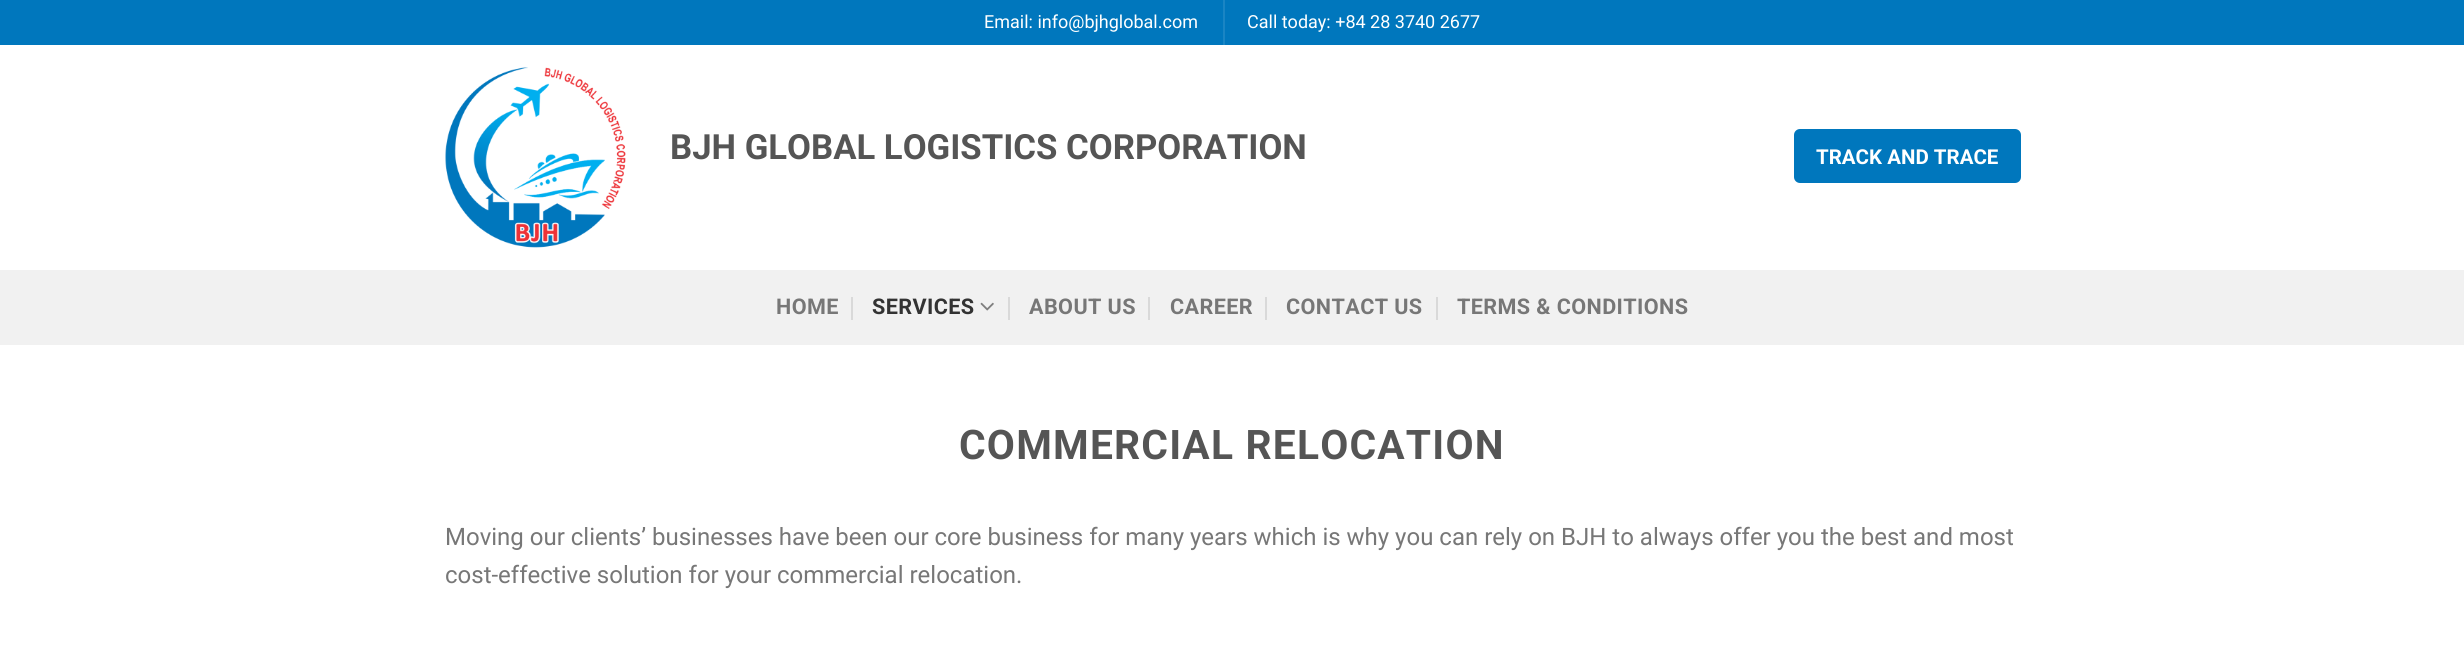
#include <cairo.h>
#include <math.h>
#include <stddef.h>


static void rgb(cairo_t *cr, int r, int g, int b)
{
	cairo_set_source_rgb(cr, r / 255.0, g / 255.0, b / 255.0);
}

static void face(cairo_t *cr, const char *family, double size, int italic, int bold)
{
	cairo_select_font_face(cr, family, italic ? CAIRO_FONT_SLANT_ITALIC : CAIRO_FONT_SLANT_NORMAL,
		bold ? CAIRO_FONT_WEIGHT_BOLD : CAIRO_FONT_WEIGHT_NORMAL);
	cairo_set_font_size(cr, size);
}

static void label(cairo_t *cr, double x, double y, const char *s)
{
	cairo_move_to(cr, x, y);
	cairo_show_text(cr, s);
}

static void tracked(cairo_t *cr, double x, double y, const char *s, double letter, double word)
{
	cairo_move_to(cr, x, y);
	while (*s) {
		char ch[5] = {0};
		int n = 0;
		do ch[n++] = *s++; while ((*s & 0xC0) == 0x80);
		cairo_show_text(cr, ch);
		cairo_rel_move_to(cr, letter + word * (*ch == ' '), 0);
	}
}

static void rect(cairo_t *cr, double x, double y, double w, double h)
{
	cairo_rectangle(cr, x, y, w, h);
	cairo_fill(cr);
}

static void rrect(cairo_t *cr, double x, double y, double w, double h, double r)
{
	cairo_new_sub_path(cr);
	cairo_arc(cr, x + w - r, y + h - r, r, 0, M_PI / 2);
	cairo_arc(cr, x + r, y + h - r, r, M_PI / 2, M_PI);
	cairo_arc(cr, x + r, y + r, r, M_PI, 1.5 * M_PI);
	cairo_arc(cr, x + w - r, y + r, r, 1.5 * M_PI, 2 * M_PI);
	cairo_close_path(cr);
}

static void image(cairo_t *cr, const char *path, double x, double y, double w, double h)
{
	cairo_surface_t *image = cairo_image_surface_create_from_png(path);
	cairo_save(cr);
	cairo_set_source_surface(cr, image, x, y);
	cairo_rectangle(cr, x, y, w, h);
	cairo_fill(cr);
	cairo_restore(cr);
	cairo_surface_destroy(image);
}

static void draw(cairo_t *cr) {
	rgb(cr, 255, 255, 255);
	cairo_paint(cr);
	rgb(cr, 0, 119, 189);
	rect(cr, 0, 0, 2464, 45);
	face(cr, "Roboto", 18, 0, 0);
	rgb(cr, 255, 255, 255);
	label(cr, 984, 28, "Email: info@bjhglobal.com");
	rgb(cr, 26, 133, 196);
	rect(cr, 1223, 0, 2, 45);
	rgb(cr, 255, 255, 255);
	label(cr, 1247, 28, "Call today: +84 28 3740 2677");
	image(cr, "image0.png", 445, 67, 181, 181);
	face(cr, "Roboto", 34.7, 0, 1);
	rgb(cr, 85, 85, 85);
	label(cr, 670, 159, "BJH GLOBAL LOGISTICS CORPORATION");
	rgb(cr, 0, 119, 189);
	rrect(cr, 1794, 129, 227, 54, 6);
	cairo_fill(cr);
	face(cr, "Roboto", 20.5, 0, 1);
	rgb(cr, 255, 255, 255);
	label(cr, 1816, 164, "TRACK AND TRACE");
	rgb(cr, 241, 241, 241);
	rect(cr, 0, 270, 2464, 75);
	face(cr, "Roboto", 21.6, 0, 1);
	rgb(cr, 119, 119, 119);
	tracked(cr, 776, 314, "HOME", 0.4, 0);
	rgb(cr, 217, 217, 217);
	rect(cr, 851, 297, 2, 23);
	rgb(cr, 51, 51, 51);
	tracked(cr, 872, 314, "SERVICES", 0.4, 0);
	image(cr, "image1.png", 980, 302, 14, 9);
	rgb(cr, 217, 217, 217);
	rect(cr, 1008, 297, 2, 23);
	rgb(cr, 119, 119, 119);
	tracked(cr, 1029, 314, "ABOUT US", 0.4, 0);
	rgb(cr, 217, 217, 217);
	rect(cr, 1148, 297, 2, 23);
	rgb(cr, 119, 119, 119);
	tracked(cr, 1170, 314, "CAREER", 0.4, 0);
	rgb(cr, 217, 217, 217);
	rect(cr, 1265, 297, 2, 23);
	rgb(cr, 119, 119, 119);
	tracked(cr, 1286, 314, "CONTACT US", 0.4, 0);
	rgb(cr, 217, 217, 217);
	rect(cr, 1436, 297, 2, 23);
	rgb(cr, 119, 119, 119);
	tracked(cr, 1457, 314, "TERMS & CONDITIONS", 0.4, 0);
	face(cr, "Roboto", 40.75, 0, 1);
	rgb(cr, 85, 85, 85);
	tracked(cr, 959, 459, "COMMERCIAL RELOCATION", 1.2, 0);
	face(cr, "Roboto", 24, 0, 0);
	rgb(cr, 119, 119, 119);
	label(cr, 445, 545, "Moving our clients’ businesses have been our core business for many years which is why you can rely on BJH to always offer you the best and most");
	label(cr, 445, 583, "cost-effective solution for your commercial relocation.");
}

int main(void) {
	cairo_surface_t *surface = cairo_image_surface_create(CAIRO_FORMAT_RGB24, 2464, 667);
	cairo_t *cr = cairo_create(surface);
	cairo_font_options_t *options = cairo_font_options_create();
	cairo_font_options_set_hint_metrics(options, CAIRO_HINT_METRICS_OFF);
	cairo_font_options_set_hint_style(options, CAIRO_HINT_STYLE_NONE);
	cairo_set_font_options(cr, options);
	cairo_set_miter_limit(cr, 4);
	draw(cr);
	cairo_surface_write_to_png(surface, "render.png");
	cairo_font_options_destroy(options);
	cairo_destroy(cr);
	cairo_surface_destroy(surface);
	return 0;
}
